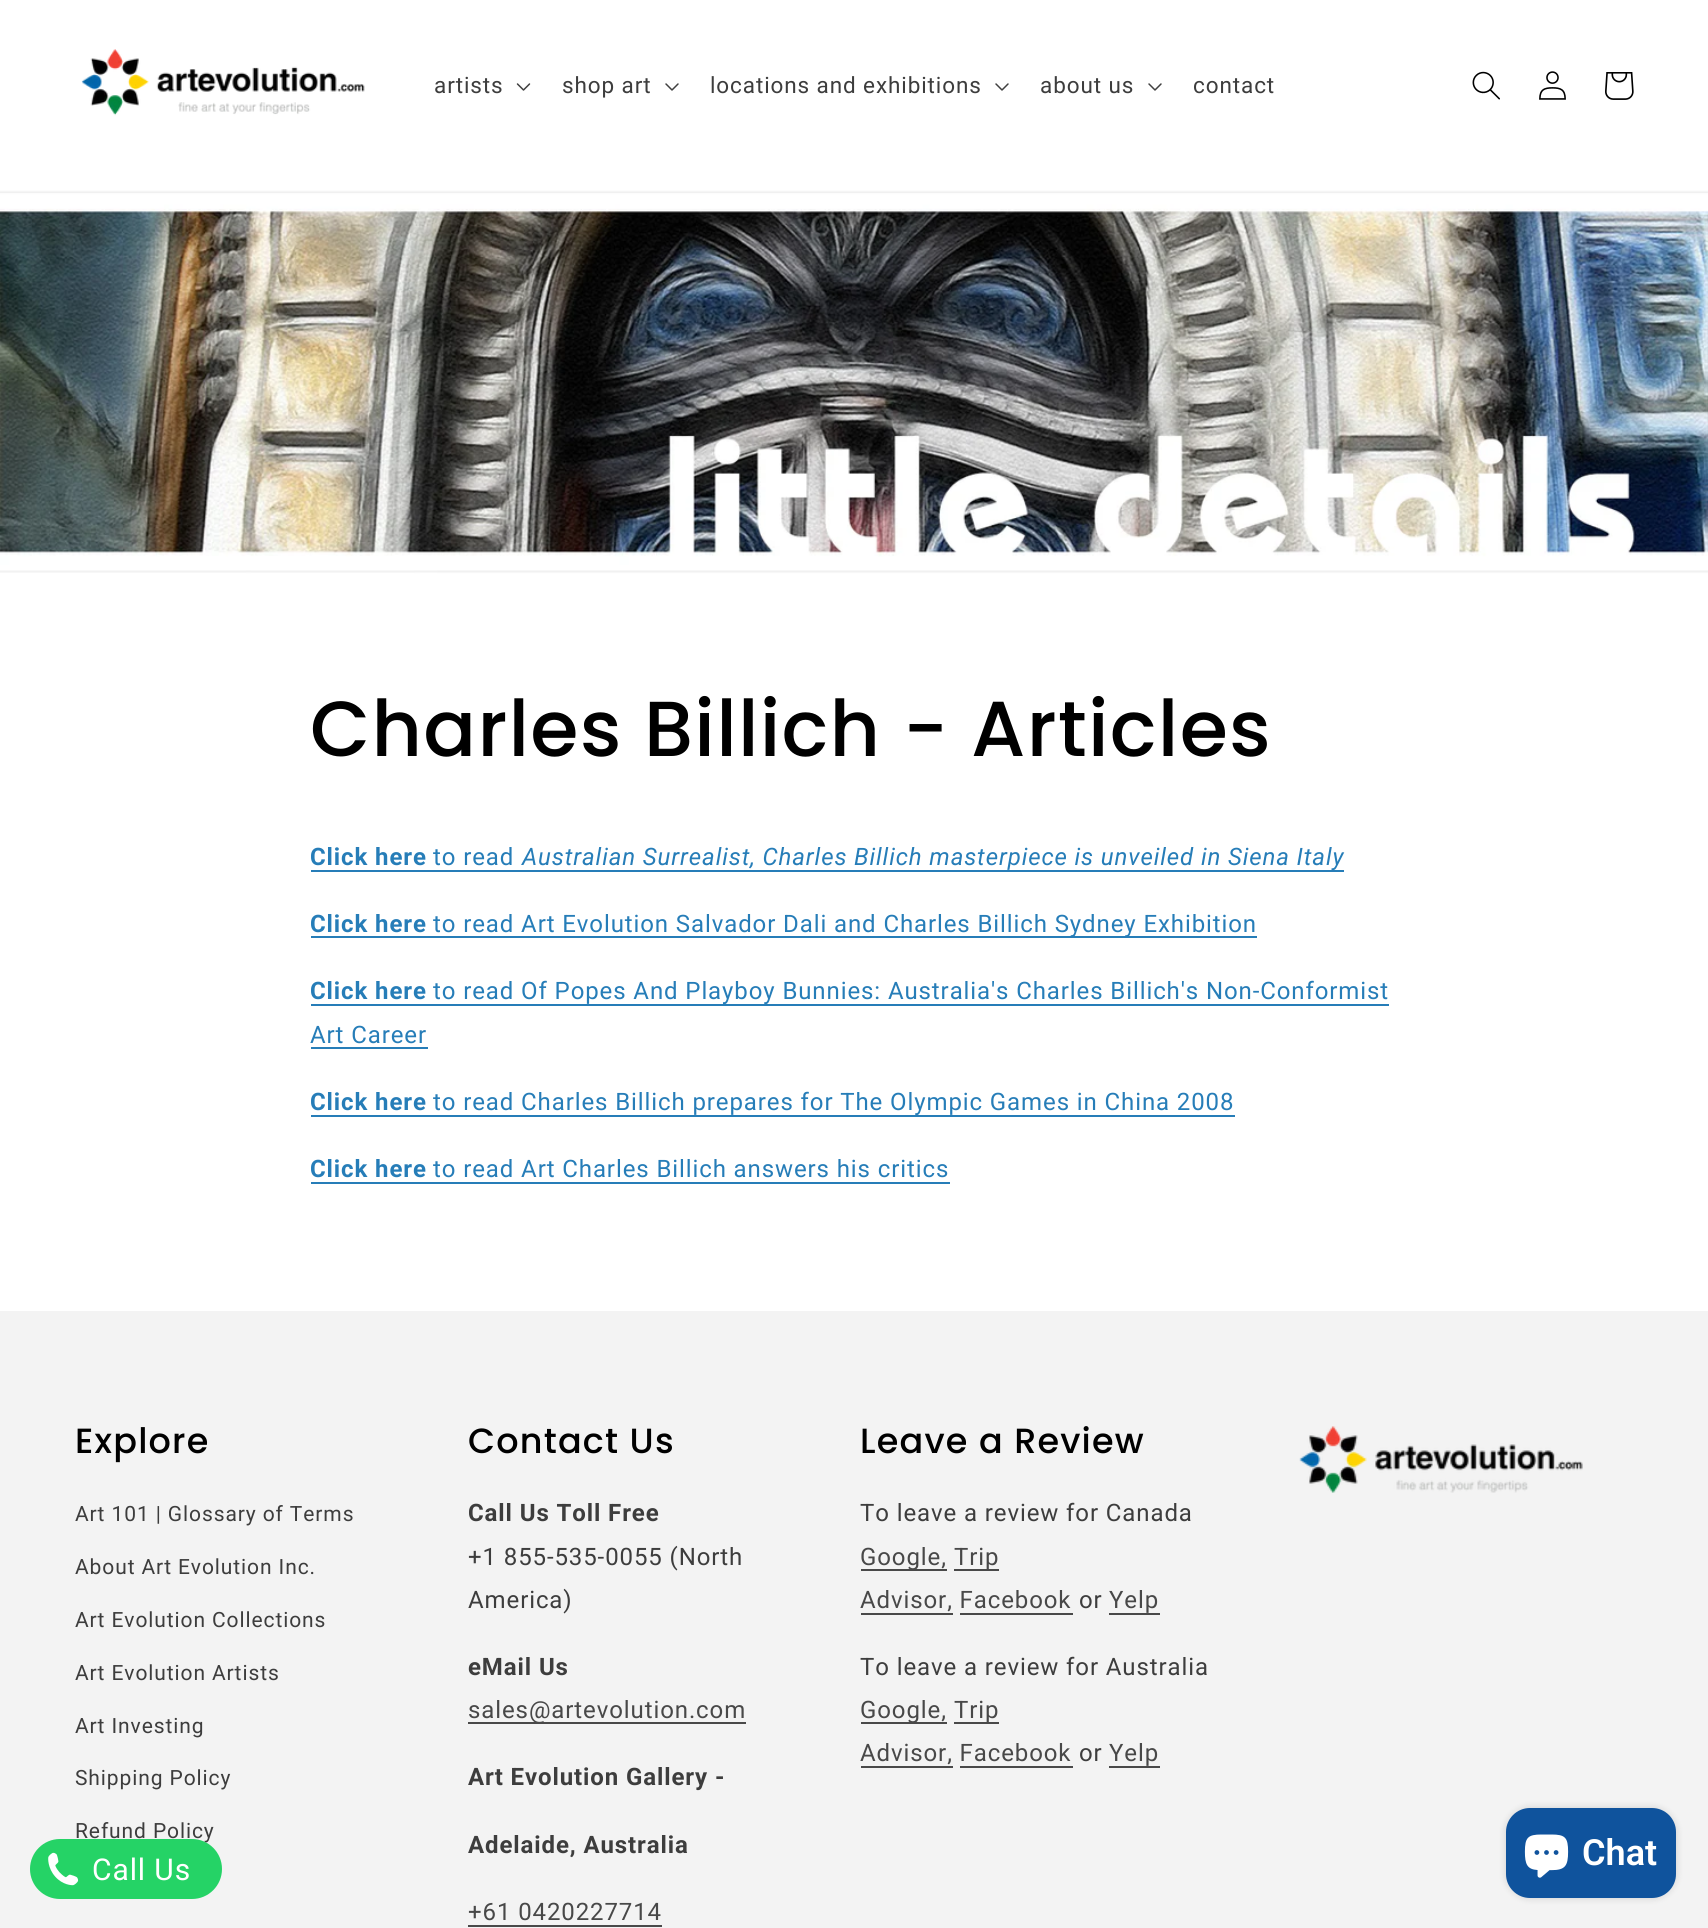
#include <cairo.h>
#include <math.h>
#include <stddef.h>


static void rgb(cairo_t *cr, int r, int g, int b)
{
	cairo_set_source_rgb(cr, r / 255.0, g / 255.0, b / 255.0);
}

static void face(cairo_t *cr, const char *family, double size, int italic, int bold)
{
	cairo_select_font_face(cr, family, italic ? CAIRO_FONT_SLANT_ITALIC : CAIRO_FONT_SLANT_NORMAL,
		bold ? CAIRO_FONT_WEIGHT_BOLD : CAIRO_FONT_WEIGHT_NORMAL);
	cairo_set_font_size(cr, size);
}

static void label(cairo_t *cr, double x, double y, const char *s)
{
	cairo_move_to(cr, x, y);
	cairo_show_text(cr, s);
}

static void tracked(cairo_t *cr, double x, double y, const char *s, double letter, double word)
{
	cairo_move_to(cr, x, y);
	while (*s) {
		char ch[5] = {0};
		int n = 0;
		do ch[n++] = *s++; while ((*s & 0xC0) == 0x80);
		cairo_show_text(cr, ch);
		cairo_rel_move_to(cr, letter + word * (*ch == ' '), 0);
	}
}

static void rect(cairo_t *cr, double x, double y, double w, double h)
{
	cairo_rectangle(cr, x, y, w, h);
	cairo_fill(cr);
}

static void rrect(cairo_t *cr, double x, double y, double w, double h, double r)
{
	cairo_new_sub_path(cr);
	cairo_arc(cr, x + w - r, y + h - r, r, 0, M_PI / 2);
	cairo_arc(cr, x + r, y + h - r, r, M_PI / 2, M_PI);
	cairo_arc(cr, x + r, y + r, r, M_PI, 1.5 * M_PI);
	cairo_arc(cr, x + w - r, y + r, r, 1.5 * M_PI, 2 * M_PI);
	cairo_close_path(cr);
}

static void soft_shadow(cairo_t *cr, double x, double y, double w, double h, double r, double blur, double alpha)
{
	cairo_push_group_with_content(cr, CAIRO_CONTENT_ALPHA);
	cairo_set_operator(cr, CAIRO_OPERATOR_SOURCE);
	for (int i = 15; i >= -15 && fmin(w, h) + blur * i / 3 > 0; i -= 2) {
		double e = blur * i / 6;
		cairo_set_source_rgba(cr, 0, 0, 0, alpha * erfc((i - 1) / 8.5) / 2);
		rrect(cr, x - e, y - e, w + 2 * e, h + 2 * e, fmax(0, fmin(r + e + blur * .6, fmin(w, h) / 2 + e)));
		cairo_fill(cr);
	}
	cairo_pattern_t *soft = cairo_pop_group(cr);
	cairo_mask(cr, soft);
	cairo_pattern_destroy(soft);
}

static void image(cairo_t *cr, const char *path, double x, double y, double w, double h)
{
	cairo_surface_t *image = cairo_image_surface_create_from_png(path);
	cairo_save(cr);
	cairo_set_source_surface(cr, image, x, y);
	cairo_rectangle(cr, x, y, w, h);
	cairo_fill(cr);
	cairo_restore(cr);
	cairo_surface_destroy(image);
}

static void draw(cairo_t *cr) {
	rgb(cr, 255, 255, 255);
	cairo_paint(cr);
	image(cr, "image0.png", 81, 49, 284, 67);
	face(cr, "Roboto", 22.5, 0, 0);
	rgb(cr, 61, 61, 61);
	tracked(cr, 434, 93, "artists", 0.9, 0);
	image(cr, "image1.png", 516, 83, 15, 8);
	tracked(cr, 562, 93, "shop art", 0.9, 0);
	image(cr, "image2.png", 665, 83, 14, 8);
	tracked(cr, 710, 93, "locations and exhibitions", 0.9, 0);
	image(cr, "image2.png", 995, 83, 14, 8);
	tracked(cr, 1040, 93, "about us", 0.9, 0);
	image(cr, "image2.png", 1148, 83, 14, 8);
	tracked(cr, 1193, 93, "contact", 0.9, 0);
	image(cr, "image3.png", 1472, 71, 28, 29);
	image(cr, "image4.png", 1539, 71, 27, 29);
	image(cr, "image5.png", 1605, 72, 29, 28);
	image(cr, "image6.png", 0, 173, 1708, 418);
	face(cr, "Poppins Medium", 78, 0, 0);
	rgb(cr, 0, 0, 0);
	tracked(cr, 310, 756, "Charles Billich - Articles", 1.2, 0);
	face(cr, "Roboto", 24, 0, 1);
	rgb(cr, 38, 125, 184);
	tracked(cr, 310, 865, "Click here", 0.9, 0);
	face(cr, "Roboto", 24, 0, 0);
	tracked(cr, 433, 865, "to read", 0.9, 0);
	rect(cr, 311, 870, 1033, 2);
	face(cr, "Roboto", 24, 1, 0);
	tracked(cr, 522, 865, "Australian Surrealist, Charles Billich masterpiece is unveiled in Siena Italy", 0.9, 0);
	face(cr, "Roboto", 24, 0, 1);
	tracked(cr, 310, 932, "Click here", 0.9, 0);
	rect(cr, 311, 936, 946, 2);
	face(cr, "Roboto", 24, 0, 0);
	tracked(cr, 433, 932, "to read Art Evolution Salvador Dali and Charles Billich Sydney Exhibition", 0.9, 0);
	face(cr, "Roboto", 24, 0, 1);
	tracked(cr, 310, 999, "Click here", 0.9, 0);
	rect(cr, 311, 1004, 1078, 2);
	face(cr, "Roboto", 24, 0, 0);
	tracked(cr, 433, 999, "to read Of Popes And Playboy Bunnies: Australia's Charles Billich's Non-Conformist", 0.9, 0);
	tracked(cr, 310, 1043, "Art Career", 0.9, 0);
	rect(cr, 311, 1047, 117, 2);
	face(cr, "Roboto", 24, 0, 1);
	tracked(cr, 310, 1110, "Click here", 0.9, 0);
	rect(cr, 311, 1115, 924, 2);
	face(cr, "Roboto", 24, 0, 0);
	tracked(cr, 433, 1110, "to read Charles Billich prepares for The Olympic Games in China 2008", 0.9, 0);
	face(cr, "Roboto", 24, 0, 1);
	tracked(cr, 310, 1177, "Click here", 0.9, 0);
	rect(cr, 311, 1182, 639, 2);
	face(cr, "Roboto", 24, 0, 0);
	tracked(cr, 433, 1177, "to read Art Charles Billich answers his critics", 0.9, 0);
	rgb(cr, 243, 243, 243);
	rect(cr, 0, 1311, 1708, 617);
	face(cr, "Poppins Medium", 35, 0, 0);
	rgb(cr, 0, 0, 0);
	tracked(cr, 75, 1453, "Explore", 1.2, 0);
	face(cr, "Roboto", 21, 0, 0);
	rgb(cr, 61, 61, 61);
	tracked(cr, 75, 1521, "Art 101 | Glossary of Terms", 0.9, 0);
	tracked(cr, 75, 1574, "About Art Evolution Inc.", 0.9, 0);
	tracked(cr, 75, 1627, "Art Evolution Collections", 0.9, 0);
	tracked(cr, 75, 1680, "Art Evolution Artists", 0.9, 0);
	tracked(cr, 75, 1733, "Art Investing", 0.9, 0);
	tracked(cr, 75, 1785, "Shipping Policy", 0.9, 0);
	tracked(cr, 75, 1838, "Refund Policy", 0.9, 0);
	face(cr, "Poppins Medium", 35, 0, 0);
	rgb(cr, 0, 0, 0);
	tracked(cr, 468, 1453, "Contact Us", 1.2, 0);
	face(cr, "Roboto", 24, 0, 1);
	rgb(cr, 61, 61, 61);
	tracked(cr, 468, 1521, "Call Us Toll Free", 0.9, 0);
	face(cr, "Roboto", 24, 0, 0);
	tracked(cr, 468, 1565, "+1 855-535-0055 (North", 0.9, 0);
	tracked(cr, 468, 1608, "America)", 0.9, 0);
	face(cr, "Roboto", 24, 0, 1);
	tracked(cr, 468, 1675, "eMail Us", 0.9, 0);
	rgb(cr, 73, 73, 73);
	rect(cr, 468, 1722, 278, 2);
	face(cr, "Roboto", 24, 0, 0);
	rgb(cr, 72, 72, 72);
	tracked(cr, 468, 1718, "sales@artevolution.com", 0.9, 0);
	face(cr, "Roboto", 24, 0, 1);
	rgb(cr, 61, 61, 61);
	tracked(cr, 468, 1785, "Art Evolution Gallery -", 0.9, 0);
	tracked(cr, 468, 1853, "Adelaide, Australia", 0.9, 0);
	face(cr, "Roboto", 24, 0, 0);
	rgb(cr, 72, 72, 72);
	tracked(cr, 468, 1920, "+61 0420227714", 0.9, 0);
	rgb(cr, 73, 73, 73);
	rect(cr, 468, 1925, 194, 2);
	face(cr, "Poppins Medium", 35, 0, 0);
	rgb(cr, 0, 0, 0);
	tracked(cr, 860, 1453, "Leave a Review", 1.2, 0);
	face(cr, "Roboto", 24, 0, 0);
	rgb(cr, 61, 61, 61);
	tracked(cr, 860, 1521, "To leave a review for Canada", 0.9, 0);
	rgb(cr, 73, 73, 73);
	rect(cr, 861, 1569, 86, 2);
	rgb(cr, 72, 72, 72);
	tracked(cr, 860, 1565, "Google,", 0.9, 0);
	rgb(cr, 73, 73, 73);
	rect(cr, 954, 1569, 45, 2);
	rgb(cr, 72, 72, 72);
	tracked(cr, 954, 1565, "Trip", 0.9, 0);
	tracked(cr, 860, 1608, "Advisor, Facebook", 0.9, 0);
	rgb(cr, 73, 73, 73);
	rect(cr, 861, 1613, 92, 2);
	rgb(cr, 61, 61, 61);
	tracked(cr, 1079, 1608, "or", 0.9, 0);
	rgb(cr, 72, 72, 72);
	tracked(cr, 1109, 1608, "Yelp", 0.9, 0);
	rgb(cr, 73, 73, 73);
	rect(cr, 1109, 1613, 51, 2);
	rect(cr, 960, 1613, 113, 2);
	rgb(cr, 61, 61, 61);
	tracked(cr, 860, 1675, "To leave a review for Australia", 0.9, 0);
	rgb(cr, 73, 73, 73);
	rect(cr, 861, 1722, 86, 2);
	rgb(cr, 72, 72, 72);
	tracked(cr, 860, 1718, "Google,", 0.9, 0);
	rgb(cr, 73, 73, 73);
	rect(cr, 954, 1722, 45, 2);
	rgb(cr, 72, 72, 72);
	tracked(cr, 954, 1718, "Trip", 0.9, 0);
	tracked(cr, 860, 1761, "Advisor, Facebook", 0.9, 0);
	rgb(cr, 73, 73, 73);
	rect(cr, 861, 1766, 92, 2);
	rgb(cr, 61, 61, 61);
	tracked(cr, 1079, 1761, "or", 0.9, 0);
	rgb(cr, 72, 72, 72);
	tracked(cr, 1109, 1761, "Yelp", 0.9, 0);
	rgb(cr, 73, 73, 73);
	rect(cr, 1109, 1766, 51, 2);
	rect(cr, 960, 1766, 113, 2);
	image(cr, "image7.png", 1299, 1426, 284, 67);
	rgb(cr, 0, 0, 0);
	soft_shadow(cr, 1506, 1808, 170, 90, 24, 4, 0.15);
	rgb(cr, 15, 83, 157);
	rrect(cr, 1506, 1808, 170, 90, 24);
	cairo_fill(cr);
	image(cr, "image8.png", 1524, 1834, 45, 44);
	face(cr, "Roboto SemiBold", 36, 0, 0);
	rgb(cr, 255, 255, 255);
	label(cr, 1582, 1865, "Chat");
	rgb(cr, 37, 211, 102);
	rrect(cr, 30, 1839, 192, 60, 30);
	cairo_fill(cr);
	image(cr, "image9.png", 48, 1852, 31, 34);
	face(cr, "Roboto", 30, 0, 0);
	rgb(cr, 255, 255, 255);
	tracked(cr, 92, 1880, "Call Us", 0.9, 0);
}

int main(void) {
	cairo_surface_t *surface = cairo_image_surface_create(CAIRO_FORMAT_RGB24, 1708, 1928);
	cairo_t *cr = cairo_create(surface);
	cairo_font_options_t *options = cairo_font_options_create();
	cairo_font_options_set_hint_metrics(options, CAIRO_HINT_METRICS_OFF);
	cairo_font_options_set_hint_style(options, CAIRO_HINT_STYLE_NONE);
	cairo_set_font_options(cr, options);
	cairo_set_miter_limit(cr, 4);
	draw(cr);
	cairo_surface_write_to_png(surface, "render.png");
	cairo_font_options_destroy(options);
	cairo_destroy(cr);
	cairo_surface_destroy(surface);
	return 0;
}
